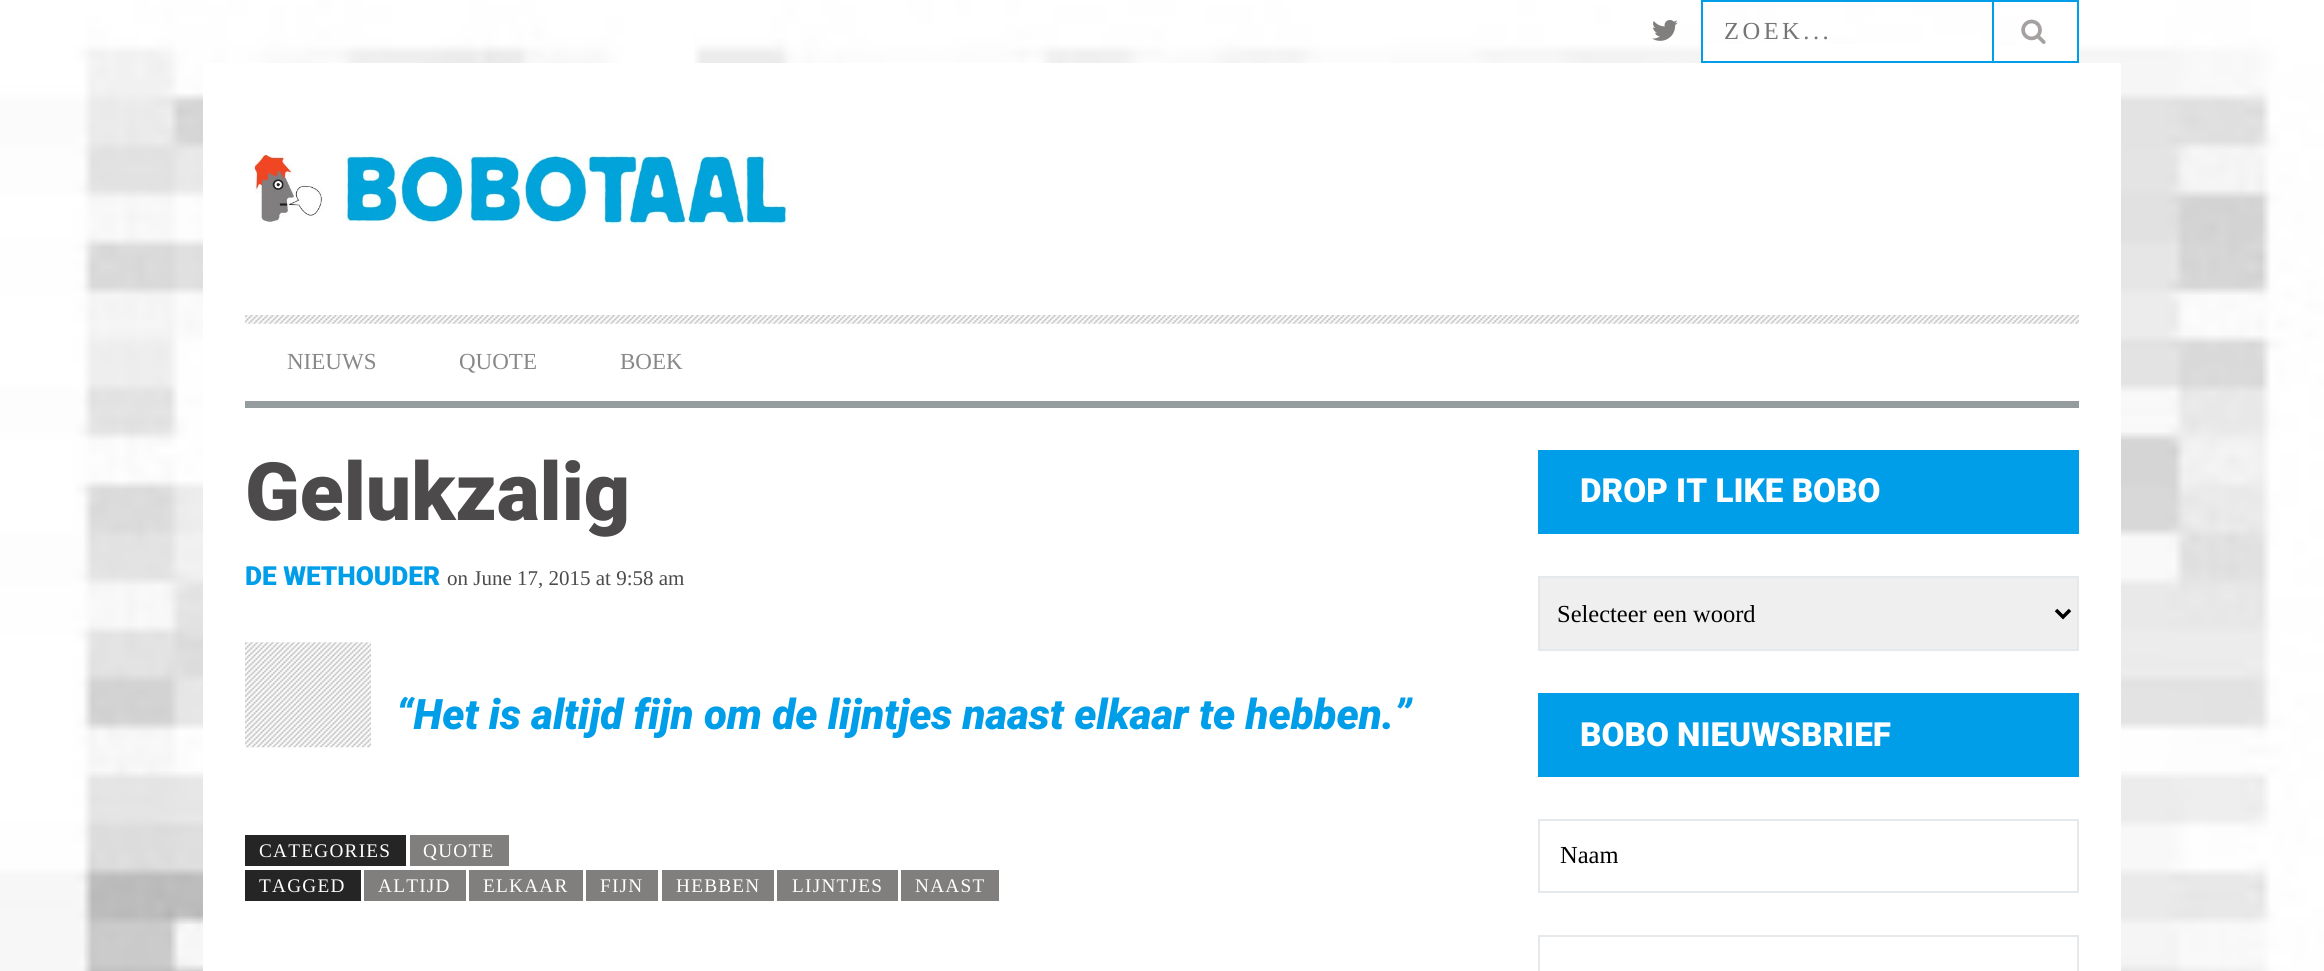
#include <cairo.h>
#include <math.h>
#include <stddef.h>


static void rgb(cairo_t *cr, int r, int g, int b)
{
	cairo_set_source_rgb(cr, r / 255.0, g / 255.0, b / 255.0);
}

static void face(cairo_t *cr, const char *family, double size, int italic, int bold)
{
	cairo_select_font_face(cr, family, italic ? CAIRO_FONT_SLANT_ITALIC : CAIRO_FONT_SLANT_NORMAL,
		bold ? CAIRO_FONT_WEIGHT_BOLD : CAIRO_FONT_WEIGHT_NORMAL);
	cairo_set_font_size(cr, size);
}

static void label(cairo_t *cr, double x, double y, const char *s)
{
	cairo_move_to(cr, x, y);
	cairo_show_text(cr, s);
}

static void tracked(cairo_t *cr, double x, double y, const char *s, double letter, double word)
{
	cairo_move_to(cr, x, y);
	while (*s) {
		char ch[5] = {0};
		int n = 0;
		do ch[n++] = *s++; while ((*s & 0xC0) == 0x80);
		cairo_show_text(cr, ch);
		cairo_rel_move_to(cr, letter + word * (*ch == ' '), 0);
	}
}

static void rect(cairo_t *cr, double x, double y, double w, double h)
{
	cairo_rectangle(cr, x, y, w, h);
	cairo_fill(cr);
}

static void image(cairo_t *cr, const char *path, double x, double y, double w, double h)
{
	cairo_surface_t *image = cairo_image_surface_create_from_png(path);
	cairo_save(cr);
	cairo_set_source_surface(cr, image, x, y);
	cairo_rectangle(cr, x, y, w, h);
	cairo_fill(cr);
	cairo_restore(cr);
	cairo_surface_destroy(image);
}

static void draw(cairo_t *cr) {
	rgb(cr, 255, 255, 255);
	cairo_paint(cr);
	image(cr, "image0.png", 0, 0, 2324, 971);
	image(cr, "image1.png", 1652, 20, 26, 21);
	rgb(cr, 255, 255, 255);
	rect(cr, 1703, 44, 289, 17);
	cairo_rectangle(cr, 1702, 1, 376, 61);
	rgb(cr, 0, 157, 232);
	cairo_stroke(cr);
	face(cr, "Liberation Serif", 24.5, 0, 0);
	rgb(cr, 117, 117, 117);
	tracked(cr, 1724, 39, "ZOEK...", 3.5, 0);
	rgb(cr, 255, 255, 255);
	rect(cr, 1994, 45, 83, 16);
	cairo_rectangle(cr, 1993, 1, 85, 61);
	rgb(cr, 0, 157, 232);
	cairo_stroke(cr);
	image(cr, "image2.png", 2021, 19, 25, 25);
	rgb(cr, 255, 255, 255);
	rect(cr, 203, 63, 1918, 908);
	image(cr, "image3.png", 254, 154, 536, 70);
	image(cr, "image4.png", 245, 315, 1834, 9);
	rgb(cr, 148, 156, 158);
	rect(cr, 245, 401, 1834, 7);
	face(cr, "Liberation Serif", 23, 0, 0);
	rgb(cr, 136, 136, 136);
	label(cr, 287, 369, "NIEUWS");
	label(cr, 459, 369, "QUOTE");
	label(cr, 620, 369, "BOEK");
	face(cr, "Roboto Black", 80.5, 0, 0);
	rgb(cr, 76, 74, 74);
	label(cr, 245, 520, "Gelukzalig");
	face(cr, "Roboto Black", 26.25, 0, 0);
	rgb(cr, 0, 157, 232);
	label(cr, 245, 585, "DE WETHOUDER");
	face(cr, "Liberation Serif", 21, 0, 0);
	rgb(cr, 76, 74, 74);
	label(cr, 447, 585, "on June 17, 2015 at 9:58 am");
	image(cr, "image5.png", 245, 642, 126, 106);
	face(cr, "Roboto Black", 42, 1, 0);
	rgb(cr, 0, 157, 232);
	label(cr, 396, 729, "“Het is altijd fijn om de lijntjes naast elkaar te hebben.”");
	rgb(cr, 38, 37, 37);
	rect(cr, 245, 835, 161, 31);
	face(cr, "Liberation Serif", 19.25, 0, 0);
	rgb(cr, 255, 255, 255);
	tracked(cr, 259, 857, "CATEGORIES", 1.25, 0);
	rgb(cr, 128, 127, 126);
	rect(cr, 410, 835, 99, 31);
	rgb(cr, 255, 255, 255);
	tracked(cr, 423, 857, "QUOTE", 1.25, 0);
	rgb(cr, 38, 37, 37);
	rect(cr, 245, 870, 116, 31);
	rgb(cr, 255, 255, 255);
	tracked(cr, 259, 892, "TAGGED", 1.25, 0);
	rgb(cr, 128, 127, 126);
	rect(cr, 364, 870, 102, 31);
	rgb(cr, 255, 255, 255);
	tracked(cr, 378, 892, "ALTIJD", 1.25, 0);
	rgb(cr, 128, 127, 126);
	rect(cr, 469, 870, 114, 31);
	rgb(cr, 255, 255, 255);
	tracked(cr, 483, 892, "ELKAAR", 1.25, 0);
	rgb(cr, 128, 127, 126);
	rect(cr, 586, 870, 72, 31);
	rgb(cr, 255, 255, 255);
	tracked(cr, 600, 892, "FIJN", 1.25, 0);
	rgb(cr, 128, 127, 126);
	rect(cr, 662, 870, 112, 31);
	rgb(cr, 255, 255, 255);
	tracked(cr, 676, 892, "HEBBEN", 1.25, 0);
	rgb(cr, 128, 127, 126);
	rect(cr, 777, 870, 121, 31);
	rgb(cr, 255, 255, 255);
	tracked(cr, 792, 892, "LIJNTJES", 1.25, 0);
	rgb(cr, 128, 127, 126);
	rect(cr, 901, 870, 98, 31);
	rgb(cr, 255, 255, 255);
	tracked(cr, 915, 892, "NAAST", 1.25, 0);
	rgb(cr, 0, 157, 232);
	rect(cr, 1538, 450, 541, 84);
	face(cr, "Roboto Black", 33.25, 0, 0);
	rgb(cr, 255, 255, 255);
	label(cr, 1580, 502, "DROP IT LIKE BOBO");
	rgb(cr, 239, 239, 239);
	cairo_rectangle(cr, 1539, 577, 539, 73);
	cairo_fill_preserve(cr);
	rgb(cr, 229, 233, 235);
	cairo_stroke(cr);
	cairo_new_path(cr);
	cairo_move_to(cr, 2056, 610);
	cairo_line_to(cr, 2063, 617);
	cairo_line_to(cr, 2070, 610);
	rgb(cr, 0, 0, 0);
	cairo_set_line_width(cr, 3.5);
	cairo_stroke(cr);
	face(cr, "Liberation Serif", 24.5, 0, 0);
	label(cr, 1557, 622, "Selecteer een woord");
	rgb(cr, 0, 157, 232);
	rect(cr, 1538, 693, 541, 84);
	face(cr, "Roboto Black", 33.25, 0, 0);
	rgb(cr, 255, 255, 255);
	label(cr, 1580, 746, "BOBO NIEUWSBRIEF");
	cairo_rectangle(cr, 1539, 820, 539, 72);
	rgb(cr, 229, 233, 235);
	cairo_set_line_width(cr, 2);
	cairo_stroke(cr);
	face(cr, "Liberation Serif", 24.5, 0, 0);
	rgb(cr, 0, 0, 0);
	label(cr, 1560, 863, "Naam");
	cairo_rectangle(cr, 1539, 936, 539, 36);
	rgb(cr, 229, 233, 235);
	cairo_stroke(cr);
}

int main(void) {
	cairo_surface_t *surface = cairo_image_surface_create(CAIRO_FORMAT_RGB24, 2324, 971);
	cairo_t *cr = cairo_create(surface);
	cairo_font_options_t *options = cairo_font_options_create();
	cairo_font_options_set_hint_metrics(options, CAIRO_HINT_METRICS_OFF);
	cairo_font_options_set_hint_style(options, CAIRO_HINT_STYLE_NONE);
	cairo_set_font_options(cr, options);
	cairo_set_miter_limit(cr, 4);
	draw(cr);
	cairo_surface_write_to_png(surface, "render.png");
	cairo_font_options_destroy(options);
	cairo_destroy(cr);
	cairo_surface_destroy(surface);
	return 0;
}
